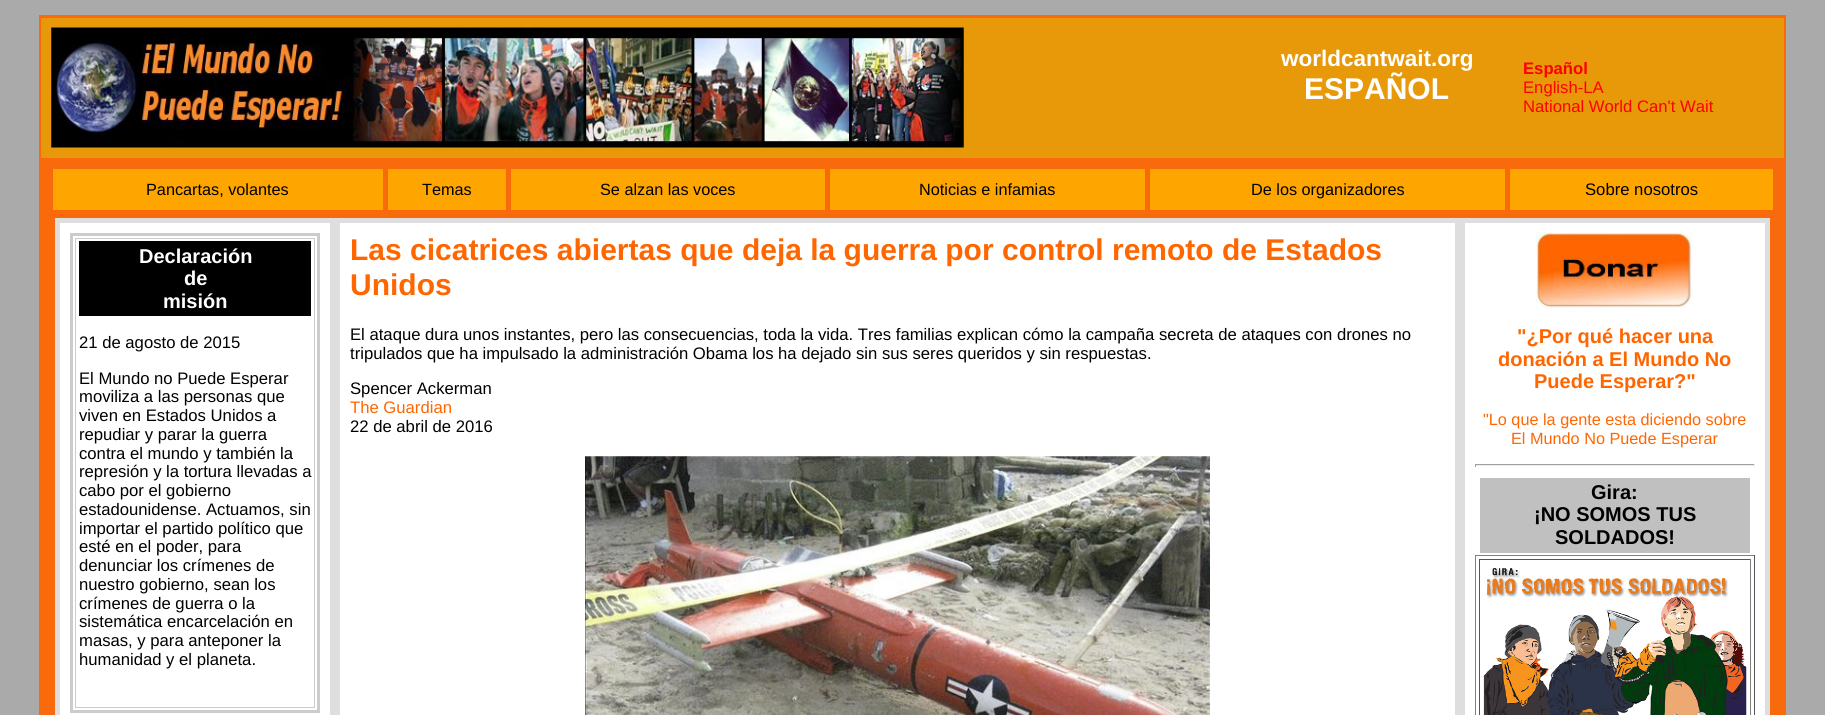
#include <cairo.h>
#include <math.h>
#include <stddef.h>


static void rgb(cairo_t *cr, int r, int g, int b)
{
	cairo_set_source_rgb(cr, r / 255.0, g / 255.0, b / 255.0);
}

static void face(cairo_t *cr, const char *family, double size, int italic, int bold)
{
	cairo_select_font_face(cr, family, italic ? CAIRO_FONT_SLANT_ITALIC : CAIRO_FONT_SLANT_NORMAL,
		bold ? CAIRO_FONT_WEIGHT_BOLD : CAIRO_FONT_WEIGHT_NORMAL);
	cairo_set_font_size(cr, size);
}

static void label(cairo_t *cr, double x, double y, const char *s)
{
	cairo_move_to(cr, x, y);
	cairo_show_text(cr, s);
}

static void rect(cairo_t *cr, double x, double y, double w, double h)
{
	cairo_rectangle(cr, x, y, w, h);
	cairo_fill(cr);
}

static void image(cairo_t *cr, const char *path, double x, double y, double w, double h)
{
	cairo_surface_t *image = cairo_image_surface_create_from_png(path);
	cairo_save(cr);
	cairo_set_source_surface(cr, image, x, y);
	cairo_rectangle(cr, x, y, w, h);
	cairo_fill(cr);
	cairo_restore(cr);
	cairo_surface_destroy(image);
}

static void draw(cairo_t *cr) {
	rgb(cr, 170, 170, 170);
	cairo_paint(cr);
	rgb(cr, 248, 106, 12);
	rect(cr, 39, 15, 1747, 700);
	rgb(cr, 232, 153, 9);
	rect(cr, 41, 18, 1743, 140);
	image(cr, "image0.png", 51, 27, 913, 121);
	face(cr, "Liberation Sans", 22.5, 0, 1);
	rgb(cr, 255, 255, 255);
	label(cr, 1281, 66, "worldcantwait.org");
	face(cr, "Liberation Sans", 30, 0, 1);
	label(cr, 1304, 99, "ESPAÑOL");
	face(cr, "Liberation Sans", 16.67, 0, 1);
	rgb(cr, 255, 0, 0);
	label(cr, 1523, 74, "Español");
	face(cr, "Liberation Sans", 16.67, 0, 0);
	label(cr, 1523, 93, "English-LA");
	label(cr, 1523, 112, "National World Can't Wait");
	rgb(cr, 255, 165, 0);
	rect(cr, 53, 169, 330, 41);
	face(cr, "Liberation Sans", 16.25, 0, 0);
	rgb(cr, 0, 0, 0);
	label(cr, 146, 195, "Pancartas, volantes");
	rgb(cr, 255, 165, 0);
	rect(cr, 388, 169, 118, 41);
	rgb(cr, 0, 0, 0);
	label(cr, 422, 195, "Temas");
	rgb(cr, 255, 165, 0);
	rect(cr, 511, 169, 314, 41);
	rgb(cr, 0, 0, 0);
	label(cr, 600, 195, "Se alzan las voces");
	rgb(cr, 255, 165, 0);
	rect(cr, 830, 169, 315, 41);
	rgb(cr, 0, 0, 0);
	label(cr, 919, 195, "Noticias e infamias");
	rgb(cr, 255, 165, 0);
	rect(cr, 1150, 169, 355, 41);
	rgb(cr, 0, 0, 0);
	label(cr, 1251, 195, "De los organizadores");
	rgb(cr, 255, 165, 0);
	rect(cr, 1510, 169, 263, 41);
	face(cr, "Liberation Sans", 16.67, 0, 0);
	rgb(cr, 0, 0, 0);
	label(cr, 1585, 195, "Sobre nosotros");
	rgb(cr, 222, 222, 222);
	rect(cr, 55, 218, 1715, 497);
	rgb(cr, 255, 255, 255);
	rect(cr, 60, 223, 270, 492);
	cairo_rectangle(cr, 71.5, 234.5, 247, 477);
	rgb(cr, 204, 204, 204);
	cairo_set_line_width(cr, 3);
	cairo_stroke(cr);
	cairo_rectangle(cr, 75.5, 238.5, 239, 469);
	cairo_set_line_width(cr, 1);
	cairo_stroke(cr);
	rgb(cr, 0, 0, 0);
	rect(cr, 79, 241, 232, 75);
	face(cr, "Liberation Sans", 20, 0, 1);
	rgb(cr, 255, 255, 255);
	label(cr, 139, 263, "Declaración");
	label(cr, 184, 285, "de");
	label(cr, 163, 308, "misión");
	face(cr, "Liberation Sans", 16.67, 0, 0);
	rgb(cr, 0, 0, 0);
	label(cr, 79, 348, "21 de agosto de 2015");
	label(cr, 79, 384, "El Mundo no Puede Esperar");
	label(cr, 79, 402, "moviliza a las personas que");
	label(cr, 79, 421, "viven en Estados Unidos a");
	label(cr, 79, 440, "repudiar y parar la guerra");
	label(cr, 79, 459, "contra el mundo y también la");
	label(cr, 79, 477, "represión y la tortura llevadas a");
	label(cr, 79, 496, "cabo por el gobierno");
	label(cr, 79, 515, "estadounidense. Actuamos, sin");
	label(cr, 79, 534, "importar el partido político que");
	label(cr, 79, 552, "esté en el poder, para");
	label(cr, 79, 571, "denunciar los crímenes de");
	label(cr, 79, 590, "nuestro gobierno, sean los");
	label(cr, 79, 609, "crímenes de guerra o la");
	label(cr, 79, 627, "sistemática encarcelación en");
	label(cr, 79, 646, "masas, y para anteponer la");
	label(cr, 79, 665, "humanidad y el planeta.");
	rgb(cr, 255, 255, 255);
	rect(cr, 340, 223, 1115, 492);
	face(cr, "Liberation Sans", 30, 0, 1);
	rgb(cr, 255, 102, 0);
	label(cr, 350, 260, "Las cicatrices abiertas que deja la guerra por control remoto de Estados");
	label(cr, 350, 295, "Unidos");
	face(cr, "Liberation Sans", 16.67, 0, 0);
	rgb(cr, 0, 0, 0);
	label(cr, 350, 340, "El ataque dura unos instantes, pero las consecuencias, toda la vida. Tres familias explican cómo la campaña secreta de ataques con drones no");
	label(cr, 350, 359, "tripulados que ha impulsado la administración Obama los ha dejado sin sus seres queridos y sin respuestas.");
	label(cr, 350, 394, "Spencer Ackerman");
	rgb(cr, 255, 102, 0);
	label(cr, 350, 413, "The Guardian");
	rgb(cr, 0, 0, 0);
	label(cr, 350, 432, "22 de abril de 2016");
	image(cr, "image1.png", 585, 456, 625, 259);
	rgb(cr, 255, 255, 255);
	rect(cr, 1465, 223, 300, 492);
	image(cr, "image2.png", 1536, 232, 157, 77);
	face(cr, "Liberation Sans", 20, 0, 1);
	rgb(cr, 255, 102, 0);
	label(cr, 1517, 343, "\"¿Por qué hacer una");
	label(cr, 1498, 366, "donación a El Mundo No");
	label(cr, 1534, 388, "Puede Esperar?\"");
	face(cr, "Liberation Sans", 16.25, 0, 0);
	label(cr, 1483, 425, "\"Lo que la gente esta diciendo sobre");
	label(cr, 1511, 444, "El Mundo No Puede Esperar");
	rgb(cr, 159, 159, 159);
	rect(cr, 1475, 464, 280, 1);
	rgb(cr, 238, 238, 238);
	rect(cr, 1754, 464, 1, 3);
	rect(cr, 1475, 465, 280, 1);
	rgb(cr, 159, 159, 159);
	rect(cr, 1475, 464, 1, 3);
	rgb(cr, 192, 192, 192);
	rect(cr, 1480, 478, 270, 75);
	face(cr, "Liberation Sans", 20, 0, 1);
	rgb(cr, 0, 0, 0);
	label(cr, 1591, 499, "Gira:");
	label(cr, 1534, 521, "¡NO SOMOS TUS");
	label(cr, 1555, 544, "SOLDADOS!");
	rgb(cr, 128, 128, 128);
	rect(cr, 1475, 555, 280, 1);
	rgb(cr, 85, 85, 85);
	rect(cr, 1754, 555, 1, 160);
	rgb(cr, 128, 128, 128);
	rect(cr, 1475, 555, 1, 160);
	rgb(cr, 85, 85, 85);
	rect(cr, 1479, 559, 272, 1);
	rgb(cr, 128, 128, 128);
	rect(cr, 1750, 559, 1, 156);
	rgb(cr, 85, 85, 85);
	rect(cr, 1479, 559, 1, 156);
	image(cr, "image3.png", 1483, 568, 264, 147);
}

int main(void) {
	cairo_surface_t *surface = cairo_image_surface_create(CAIRO_FORMAT_RGB24, 1825, 715);
	cairo_t *cr = cairo_create(surface);
	cairo_font_options_t *options = cairo_font_options_create();
	cairo_font_options_set_hint_metrics(options, CAIRO_HINT_METRICS_OFF);
	cairo_font_options_set_hint_style(options, CAIRO_HINT_STYLE_NONE);
	cairo_set_font_options(cr, options);
	cairo_set_miter_limit(cr, 4);
	draw(cr);
	cairo_surface_write_to_png(surface, "render.png");
	cairo_font_options_destroy(options);
	cairo_destroy(cr);
	cairo_surface_destroy(surface);
	return 0;
}
